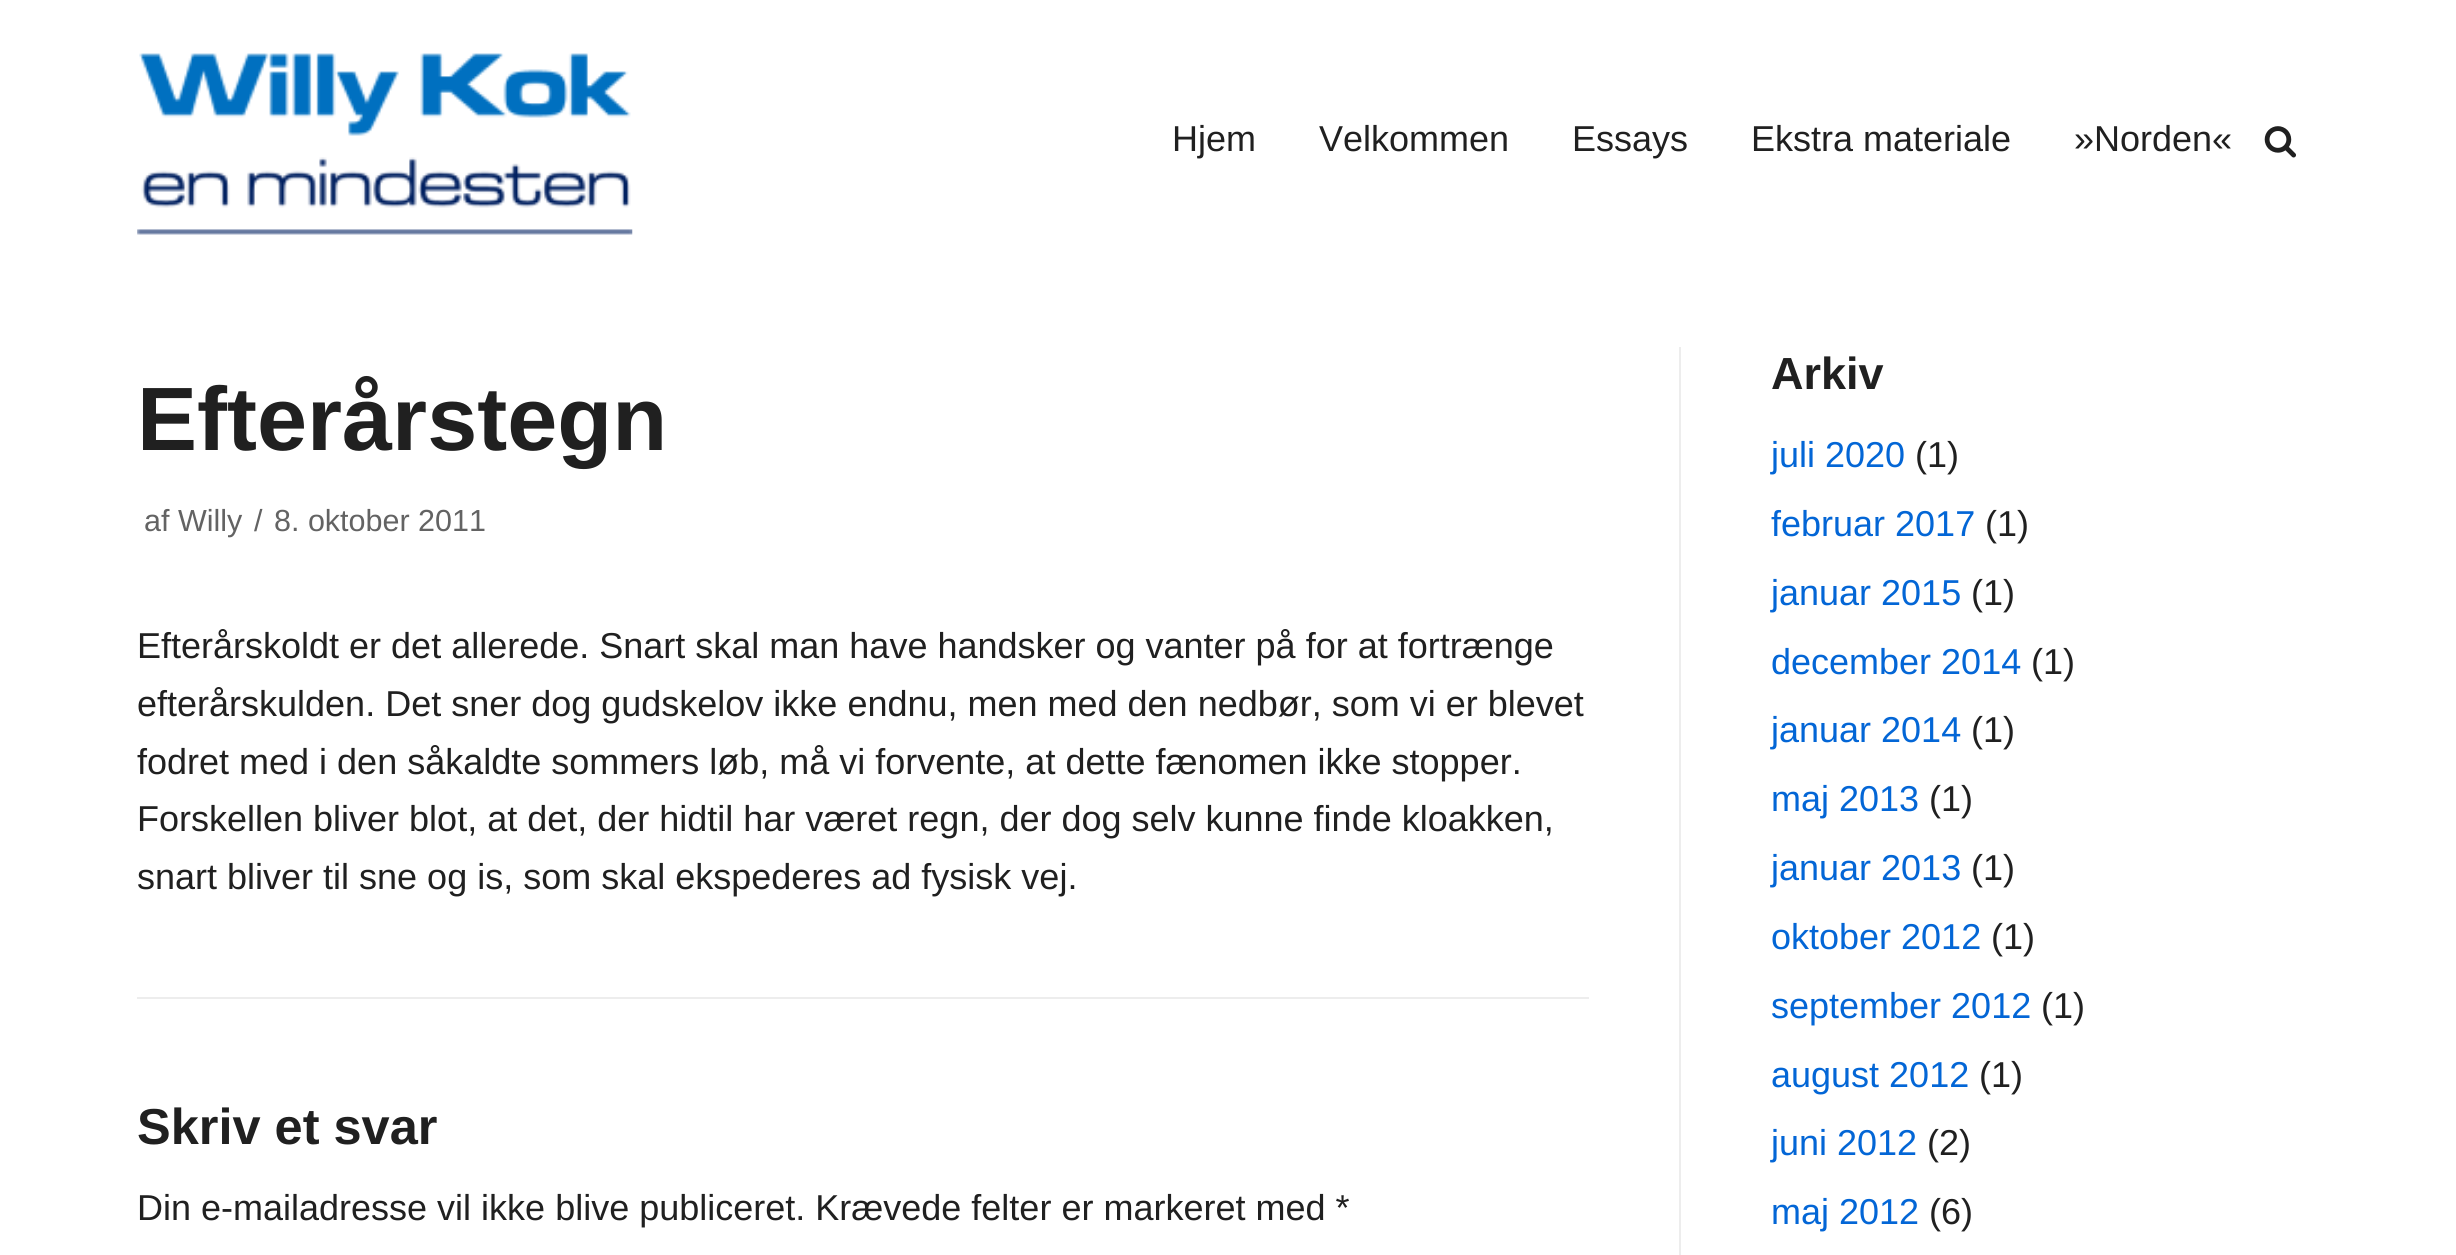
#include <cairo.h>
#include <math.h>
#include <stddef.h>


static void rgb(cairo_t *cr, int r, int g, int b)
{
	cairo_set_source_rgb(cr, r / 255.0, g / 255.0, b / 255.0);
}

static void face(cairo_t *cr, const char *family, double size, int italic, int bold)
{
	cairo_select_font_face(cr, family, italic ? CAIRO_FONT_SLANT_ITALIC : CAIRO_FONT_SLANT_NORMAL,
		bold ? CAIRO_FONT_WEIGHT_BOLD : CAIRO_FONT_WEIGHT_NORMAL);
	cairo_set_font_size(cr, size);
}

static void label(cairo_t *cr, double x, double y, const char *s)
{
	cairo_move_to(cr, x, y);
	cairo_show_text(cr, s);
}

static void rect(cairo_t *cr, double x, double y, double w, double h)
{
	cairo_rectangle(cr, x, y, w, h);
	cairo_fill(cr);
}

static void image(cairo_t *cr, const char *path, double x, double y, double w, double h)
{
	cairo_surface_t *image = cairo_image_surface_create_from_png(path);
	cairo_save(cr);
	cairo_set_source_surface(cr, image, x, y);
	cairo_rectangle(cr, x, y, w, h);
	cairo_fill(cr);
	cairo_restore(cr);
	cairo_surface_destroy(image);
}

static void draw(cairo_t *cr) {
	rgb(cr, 255, 255, 255);
	cairo_paint(cr);
	image(cr, "image0.png", 137, 53, 496, 182);
	face(cr, "Liberation Sans", 36, 0, 0);
	rgb(cr, 32, 32, 32);
	label(cr, 1172, 151, "Hjem");
	label(cr, 1319, 151, "Velkommen");
	label(cr, 1572, 151, "Essays");
	label(cr, 1751, 151, "Ekstra materiale");
	label(cr, 2074, 151, "»Norden«");
	image(cr, "image1.png", 2264, 126, 32, 32);
	face(cr, "Liberation Sans", 90, 0, 1);
	label(cr, 137, 450, "Efterårstegn");
	face(cr, "Liberation Sans", 30.5, 0, 0);
	rgb(cr, 99, 99, 99);
	label(cr, 144, 531, "af Willy");
	label(cr, 254, 531, "/");
	label(cr, 274, 531, "8. oktober 2011");
	face(cr, "Liberation Sans", 36, 0, 0);
	rgb(cr, 32, 32, 32);
	label(cr, 137, 658, "Efterårskoldt er det allerede. Snart skal man have handsker og vanter på for at fortrænge");
	label(cr, 137, 716, "efterårskulden. Det sner dog gudskelov ikke endnu, men med den nedbør, som vi er blevet");
	label(cr, 137, 774, "fodret med i den såkaldte sommers løb, må vi forvente, at dette fænomen ikke stopper.");
	label(cr, 137, 831, "Forskellen bliver blot, at det, der hidtil har været regn, der dog selv kunne finde kloakken,");
	label(cr, 137, 889, "snart bliver til sne og is, som skal ekspederes ad fysisk vej.");
	rgb(cr, 237, 237, 237);
	rect(cr, 137, 997, 1452, 2);
	face(cr, "Liberation Sans", 50.5, 0, 1);
	rgb(cr, 32, 32, 32);
	label(cr, 137, 1144, "Skriv et svar");
	face(cr, "Liberation Sans", 36, 0, 0);
	label(cr, 137, 1220, "Din e-mailadresse vil ikke blive publiceret. Krævede felter er markeret med *");
	rgb(cr, 237, 237, 237);
	rect(cr, 1679, 347, 2, 908);
	face(cr, "Liberation Sans", 45, 0, 1);
	rgb(cr, 32, 32, 32);
	label(cr, 1771, 389, "Arkiv");
	face(cr, "Liberation Sans", 36, 0, 0);
	rgb(cr, 3, 102, 214);
	label(cr, 1771, 467, "juli 2020");
	rgb(cr, 32, 32, 32);
	label(cr, 1915, 467, "(1)");
	rgb(cr, 3, 102, 214);
	label(cr, 1771, 536, "februar 2017");
	rgb(cr, 32, 32, 32);
	label(cr, 1985, 536, "(1)");
	rgb(cr, 3, 102, 214);
	label(cr, 1771, 605, "januar 2015");
	rgb(cr, 32, 32, 32);
	label(cr, 1971, 605, "(1)");
	rgb(cr, 3, 102, 214);
	label(cr, 1771, 674, "december 2014");
	rgb(cr, 32, 32, 32);
	label(cr, 2031, 674, "(1)");
	rgb(cr, 3, 102, 214);
	label(cr, 1771, 742, "januar 2014");
	rgb(cr, 32, 32, 32);
	label(cr, 1971, 742, "(1)");
	rgb(cr, 3, 102, 214);
	label(cr, 1771, 811, "maj 2013");
	rgb(cr, 32, 32, 32);
	label(cr, 1929, 811, "(1)");
	rgb(cr, 3, 102, 214);
	label(cr, 1771, 880, "januar 2013");
	rgb(cr, 32, 32, 32);
	label(cr, 1971, 880, "(1)");
	rgb(cr, 3, 102, 214);
	label(cr, 1771, 949, "oktober 2012");
	rgb(cr, 32, 32, 32);
	label(cr, 1991, 949, "(1)");
	rgb(cr, 3, 102, 214);
	label(cr, 1771, 1018, "september 2012");
	rgb(cr, 32, 32, 32);
	label(cr, 2041, 1018, "(1)");
	rgb(cr, 3, 102, 214);
	label(cr, 1771, 1087, "august 2012");
	rgb(cr, 32, 32, 32);
	label(cr, 1979, 1087, "(1)");
	rgb(cr, 3, 102, 214);
	label(cr, 1771, 1155, "juni 2012");
	rgb(cr, 32, 32, 32);
	label(cr, 1927, 1155, "(2)");
	rgb(cr, 3, 102, 214);
	label(cr, 1771, 1224, "maj 2012");
	rgb(cr, 32, 32, 32);
	label(cr, 1929, 1224, "(6)");
}

int main(void) {
	cairo_surface_t *surface = cairo_image_surface_create(CAIRO_FORMAT_RGB24, 2456, 1255);
	cairo_t *cr = cairo_create(surface);
	cairo_font_options_t *options = cairo_font_options_create();
	cairo_font_options_set_hint_metrics(options, CAIRO_HINT_METRICS_OFF);
	cairo_font_options_set_hint_style(options, CAIRO_HINT_STYLE_NONE);
	cairo_set_font_options(cr, options);
	cairo_set_miter_limit(cr, 4);
	draw(cr);
	cairo_surface_write_to_png(surface, "render.png");
	cairo_font_options_destroy(options);
	cairo_destroy(cr);
	cairo_surface_destroy(surface);
	return 0;
}
